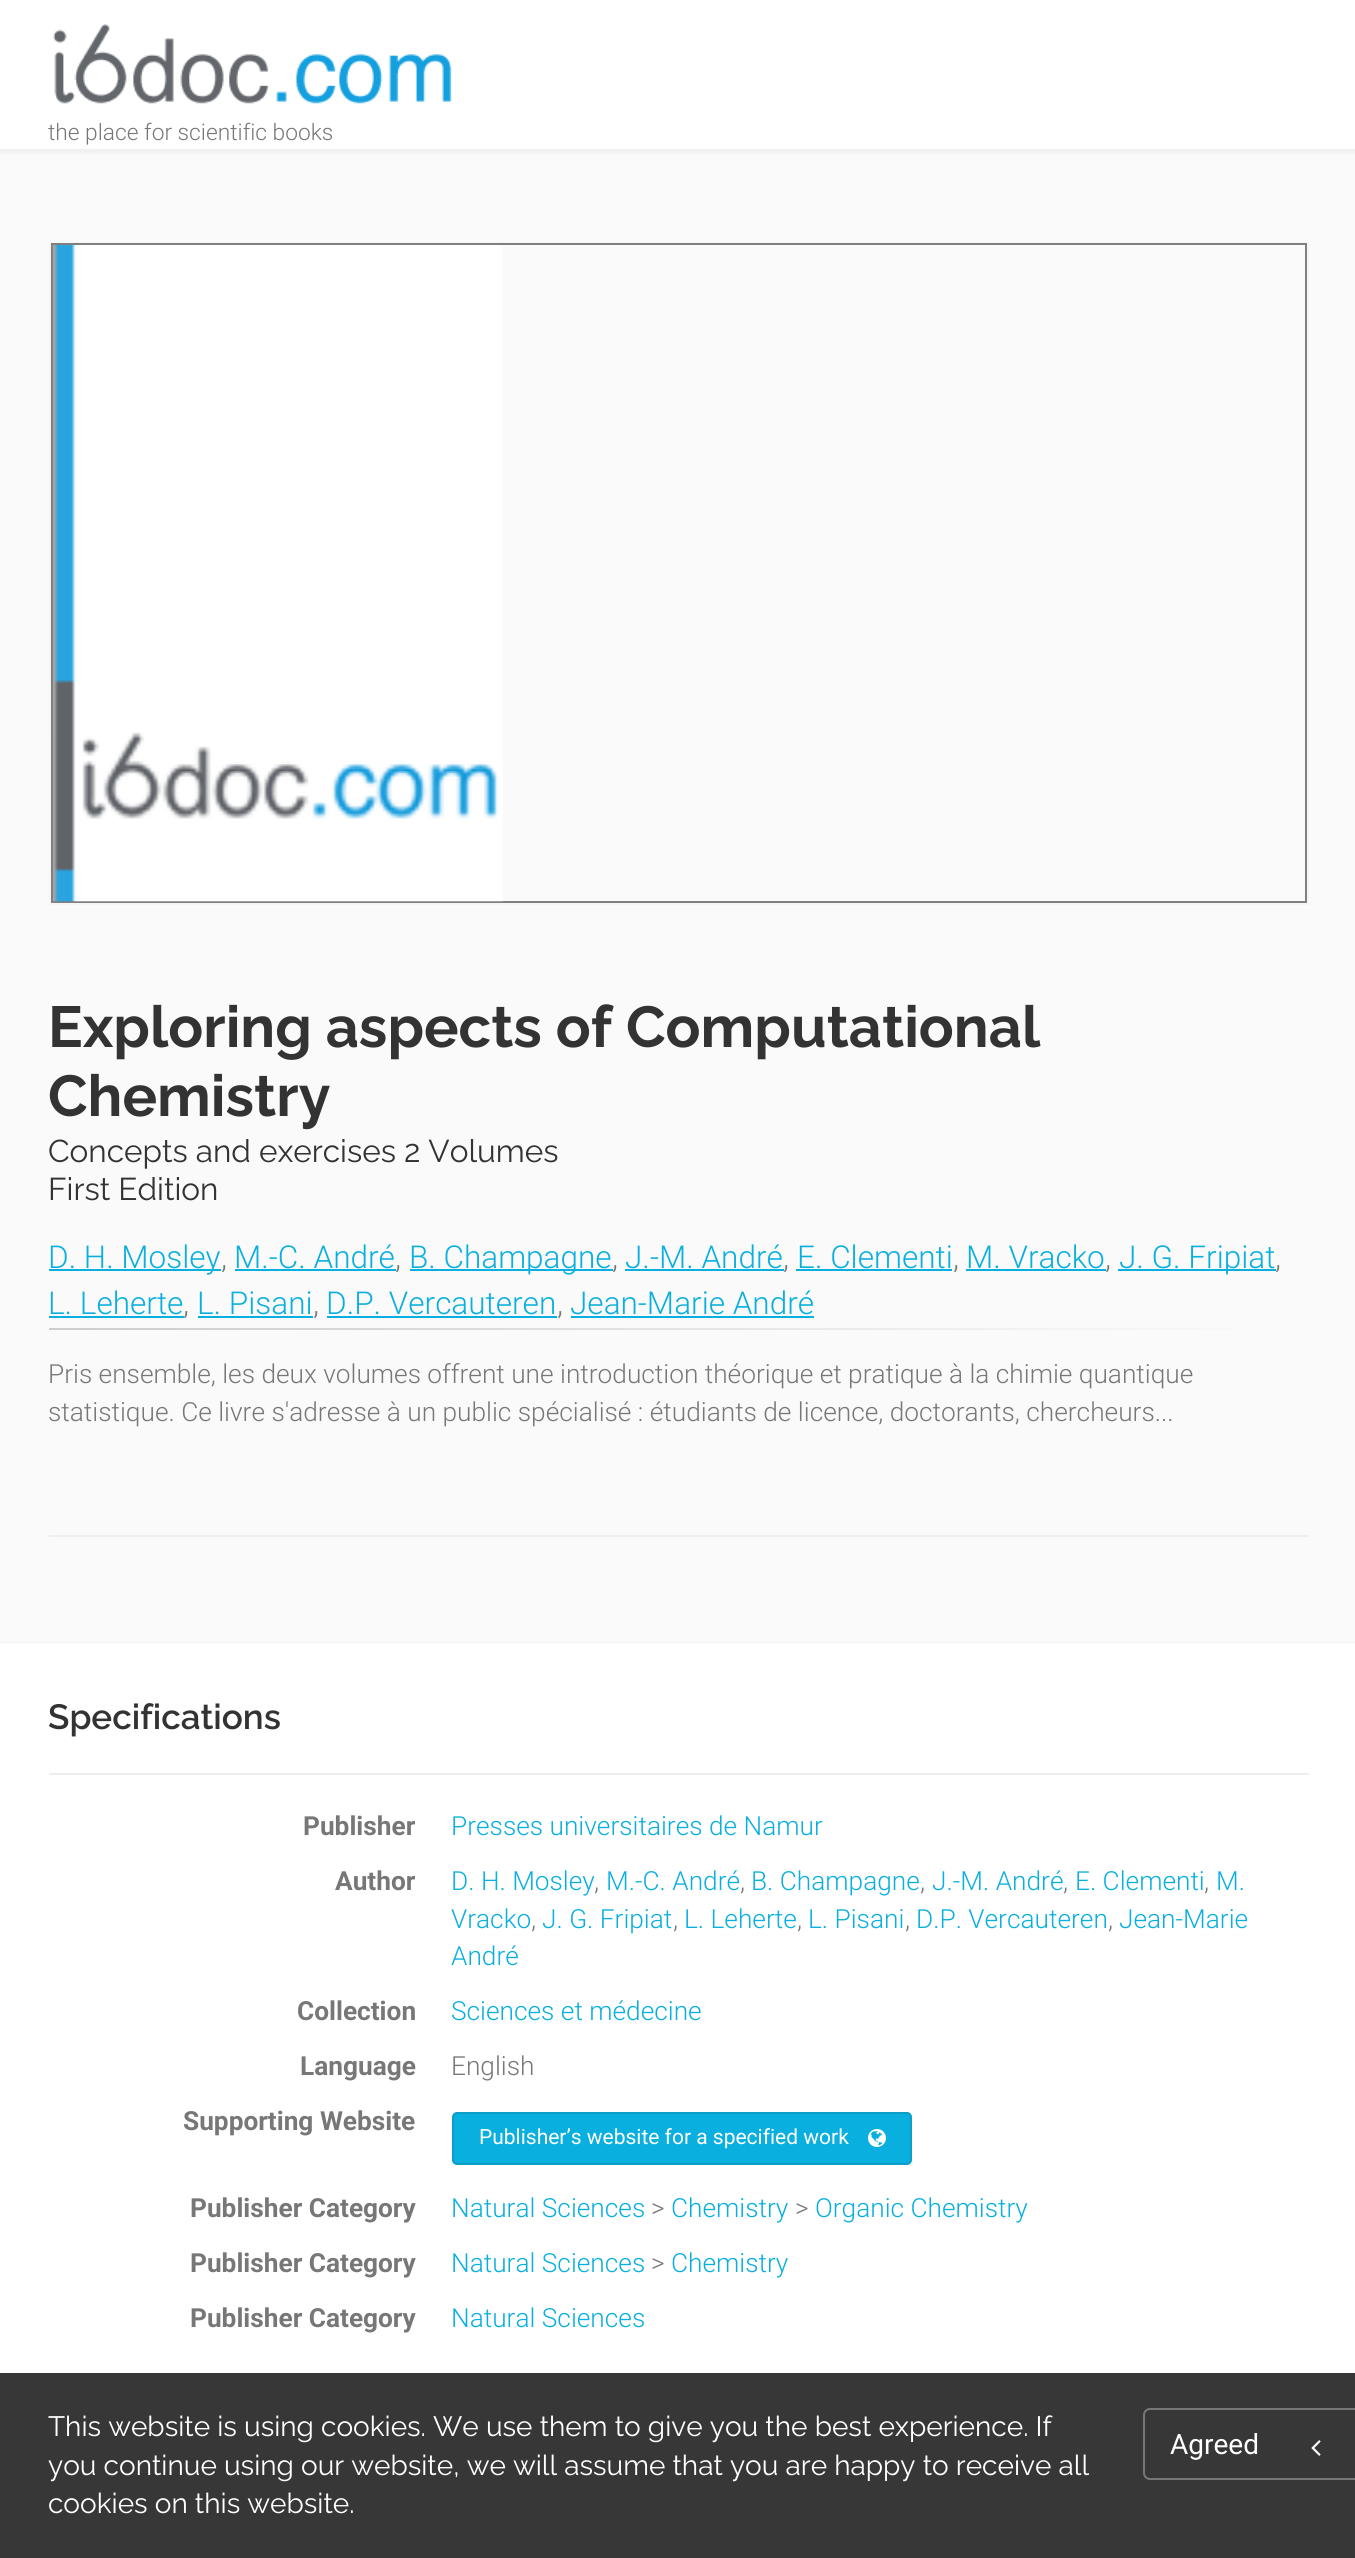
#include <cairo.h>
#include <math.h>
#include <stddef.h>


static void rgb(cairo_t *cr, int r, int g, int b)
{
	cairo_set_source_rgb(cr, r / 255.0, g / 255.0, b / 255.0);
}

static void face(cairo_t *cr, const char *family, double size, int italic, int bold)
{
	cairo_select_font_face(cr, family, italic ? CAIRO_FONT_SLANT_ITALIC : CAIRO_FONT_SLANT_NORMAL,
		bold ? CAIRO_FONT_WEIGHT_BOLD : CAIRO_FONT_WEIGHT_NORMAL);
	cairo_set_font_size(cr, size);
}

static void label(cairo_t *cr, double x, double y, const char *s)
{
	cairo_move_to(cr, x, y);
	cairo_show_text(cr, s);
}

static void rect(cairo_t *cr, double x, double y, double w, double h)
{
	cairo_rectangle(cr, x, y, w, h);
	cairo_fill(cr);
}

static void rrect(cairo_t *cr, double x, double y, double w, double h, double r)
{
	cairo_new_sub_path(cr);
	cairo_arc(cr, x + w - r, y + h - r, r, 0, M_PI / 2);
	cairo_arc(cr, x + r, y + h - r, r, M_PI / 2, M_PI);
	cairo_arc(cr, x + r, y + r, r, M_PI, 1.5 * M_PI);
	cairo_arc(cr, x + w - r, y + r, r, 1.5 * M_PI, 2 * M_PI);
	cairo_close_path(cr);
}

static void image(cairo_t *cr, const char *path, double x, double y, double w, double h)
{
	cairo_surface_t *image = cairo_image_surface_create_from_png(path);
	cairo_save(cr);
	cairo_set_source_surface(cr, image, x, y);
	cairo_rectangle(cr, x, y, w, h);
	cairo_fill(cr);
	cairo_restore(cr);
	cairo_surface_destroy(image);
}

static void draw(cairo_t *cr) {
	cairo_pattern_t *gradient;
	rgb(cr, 255, 255, 255);
	cairo_paint(cr);
	rgb(cr, 241, 241, 241);
	rect(cr, 0, 149, 1355, 3);
	image(cr, "image0.png", 53, 24, 399, 80);
	face(cr, "Roboto Light", 22.75, 0, 0);
	rgb(cr, 119, 119, 119);
	label(cr, 48, 140, "the place for scientific books");
	rgb(cr, 250, 250, 250);
	rect(cr, 0, 154, 1355, 1488);
	rgb(cr, 243, 243, 243);
	rect(cr, 0, 152, 1355, 2);
	rect(cr, 0, 1642, 1355, 1);
	cairo_rectangle(cr, 50, 243, 1258, 661);
	rgb(cr, 245, 245, 245);
	cairo_stroke(cr);
	cairo_rectangle(cr, 52, 244, 1254, 658);
	rgb(cr, 128, 128, 128);
	cairo_stroke(cr);
	image(cr, "image1.png", 53, 245, 450, 657);
	face(cr, "Raleway", 57.75, 0, 1);
	rgb(cr, 51, 51, 51);
	label(cr, 48, 1047, "Exploring aspects of Computational");
	label(cr, 48, 1116, "Chemistry");
	face(cr, "Raleway", 31.5, 0, 0);
	label(cr, 48, 1162, "Concepts and exercises 2 Volumes");
	label(cr, 48, 1200, "First Edition");
	rgb(cr, 9, 175, 223);
	rect(cr, 49, 1269, 172, 2);
	face(cr, "Roboto Light", 31.5, 0, 0);
	label(cr, 48, 1268, "D. H. Mosley");
	rgb(cr, 119, 119, 119);
	label(cr, 221, 1268, ",");
	rgb(cr, 9, 175, 223);
	label(cr, 234, 1268, "M.-C. André");
	rect(cr, 235, 1269, 161, 2);
	rgb(cr, 119, 119, 119);
	label(cr, 395, 1268, ",");
	rgb(cr, 9, 175, 223);
	rect(cr, 410, 1269, 203, 2);
	label(cr, 409, 1268, "B. Champagne");
	rgb(cr, 119, 119, 119);
	label(cr, 612, 1268, ",");
	rgb(cr, 9, 175, 223);
	label(cr, 625, 1268, "J.-M. André");
	rect(cr, 625, 1269, 159, 2);
	rgb(cr, 119, 119, 119);
	label(cr, 783, 1268, ",");
	rgb(cr, 9, 175, 223);
	label(cr, 797, 1268, "E. Clementi");
	rect(cr, 796, 1269, 156, 2);
	rgb(cr, 119, 119, 119);
	label(cr, 953, 1268, ",");
	rgb(cr, 9, 175, 223);
	label(cr, 966, 1268, "M. Vracko");
	rect(cr, 966, 1269, 140, 2);
	rgb(cr, 119, 119, 119);
	label(cr, 1105, 1268, ",");
	rgb(cr, 9, 175, 223);
	rect(cr, 1118, 1269, 158, 2);
	label(cr, 1119, 1268, "J. G. Fripiat");
	rgb(cr, 119, 119, 119);
	label(cr, 1275, 1268, ",");
	rgb(cr, 9, 175, 223);
	label(cr, 48, 1314, "L. Leherte");
	rect(cr, 49, 1316, 135, 2);
	rgb(cr, 119, 119, 119);
	label(cr, 183, 1314, ",");
	rgb(cr, 9, 175, 223);
	label(cr, 197, 1314, "L. Pisani");
	rect(cr, 198, 1316, 115, 2);
	rgb(cr, 119, 119, 119);
	label(cr, 313, 1314, ",");
	rgb(cr, 9, 175, 223);
	label(cr, 326, 1314, "D.P. Vercauteren");
	rect(cr, 327, 1316, 230, 2);
	rgb(cr, 119, 119, 119);
	label(cr, 557, 1314, ",");
	rgb(cr, 9, 175, 223);
	label(cr, 570, 1314, "Jean-Marie André");
	rect(cr, 571, 1316, 243, 2);
	gradient = cairo_pattern_create_linear(49, 1329, 1309, 1329);
	cairo_pattern_add_color_stop_rgba(gradient, 0, 0.804, 0.804, 0.804, 1);
	cairo_pattern_add_color_stop_rgba(gradient, 0.35, 0.863, 0.863, 0.863, 1);
	cairo_pattern_add_color_stop_rgba(gradient, 0.7, 0.933, 0.933, 0.933, 1);
	cairo_pattern_add_color_stop_rgba(gradient, 1, 0.98, 0.98, 0.98, 1);
	cairo_set_source(cr, gradient);
	cairo_pattern_destroy(gradient);
	rect(cr, 49, 1328, 1181, 2);
	face(cr, "Roboto Light", 26.25, 0, 0);
	rgb(cr, 119, 119, 119);
	label(cr, 48, 1383, "Pris ensemble, les deux volumes offrent une introduction théorique et pratique à la chimie quantique");
	label(cr, 48, 1421, "statistique. Ce livre s'adresse à un public spécialisé : étudiants de licence, doctorants, chercheurs...");
	rgb(cr, 238, 238, 238);
	rect(cr, 49, 1535, 1260, 2);
	face(cr, "Raleway SemiBold", 35, 0, 0);
	rgb(cr, 51, 51, 51);
	label(cr, 48, 1729, "Specifications");
	rgb(cr, 238, 238, 238);
	rect(cr, 49, 1773, 1260, 2);
	face(cr, "Roboto", 26.25, 0, 1);
	rgb(cr, 119, 119, 119);
	label(cr, 303, 1835, "Publisher");
	face(cr, "Roboto Light", 26.25, 0, 0);
	rgb(cr, 9, 175, 223);
	label(cr, 451, 1835, "Presses universitaires de Namur");
	face(cr, "Roboto", 26.25, 0, 1);
	rgb(cr, 119, 119, 119);
	label(cr, 335, 1890, "Author");
	face(cr, "Roboto Light", 26.25, 0, 0);
	rgb(cr, 9, 175, 223);
	label(cr, 451, 1890, "D. H. Mosley");
	rgb(cr, 119, 119, 119);
	label(cr, 594, 1890, ",");
	rgb(cr, 9, 175, 223);
	label(cr, 606, 1890, "M.-C. André");
	rgb(cr, 119, 119, 119);
	label(cr, 740, 1890, ",");
	rgb(cr, 9, 175, 223);
	label(cr, 751, 1890, "B. Champagne");
	rgb(cr, 119, 119, 119);
	label(cr, 920, 1890, ",");
	rgb(cr, 9, 175, 223);
	label(cr, 932, 1890, "J.-M. André");
	rgb(cr, 119, 119, 119);
	label(cr, 1063, 1890, ",");
	rgb(cr, 9, 175, 223);
	label(cr, 1075, 1890, "E. Clementi");
	rgb(cr, 119, 119, 119);
	label(cr, 1204, 1890, ",");
	rgb(cr, 9, 175, 223);
	label(cr, 1216, 1890, "M.");
	label(cr, 451, 1928, "Vracko");
	rgb(cr, 119, 119, 119);
	label(cr, 531, 1928, ",");
	rgb(cr, 9, 175, 223);
	label(cr, 542, 1928, "J. G. Fripiat");
	rgb(cr, 119, 119, 119);
	label(cr, 673, 1928, ",");
	rgb(cr, 9, 175, 223);
	label(cr, 684, 1928, "L. Leherte");
	rgb(cr, 119, 119, 119);
	label(cr, 797, 1928, ",");
	rgb(cr, 9, 175, 223);
	label(cr, 808, 1928, "L. Pisani");
	rgb(cr, 119, 119, 119);
	label(cr, 905, 1928, ",");
	rgb(cr, 9, 175, 223);
	label(cr, 916, 1928, "D.P. Vercauteren");
	rgb(cr, 119, 119, 119);
	label(cr, 1108, 1928, ",");
	rgb(cr, 9, 175, 223);
	label(cr, 1119, 1928, "Jean-Marie");
	label(cr, 451, 1965, "André");
	face(cr, "Roboto", 26.25, 0, 1);
	rgb(cr, 119, 119, 119);
	label(cr, 297, 2020, "Collection");
	face(cr, "Roboto Light", 26.25, 0, 0);
	rgb(cr, 9, 175, 223);
	label(cr, 451, 2020, "Sciences et médecine");
	face(cr, "Roboto", 26.25, 0, 1);
	rgb(cr, 119, 119, 119);
	label(cr, 300, 2075, "Language");
	face(cr, "Roboto Light", 26.25, 0, 0);
	label(cr, 451, 2075, "English");
	face(cr, "Roboto", 26.25, 0, 1);
	label(cr, 183, 2130, "Supporting Website");
	rgb(cr, 9, 175, 223);
	rrect(cr, 453, 2113, 458, 51, 4);
	cairo_fill_preserve(cr);
	rgb(cr, 12, 158, 199);
	cairo_stroke(cr);
	face(cr, "Roboto", 21, 0, 0);
	rgb(cr, 255, 255, 255);
	label(cr, 479, 2144, "Publisher’s website for a specified work");
	image(cr, "image2.png", 868, 2129, 18, 18);
	face(cr, "Roboto", 26.25, 0, 1);
	rgb(cr, 119, 119, 119);
	label(cr, 190, 2217, "Publisher Category");
	face(cr, "Roboto Light", 26.25, 0, 0);
	rgb(cr, 9, 175, 223);
	label(cr, 451, 2217, "Natural Sciences");
	rgb(cr, 119, 119, 119);
	label(cr, 651, 2217, ">");
	rgb(cr, 9, 175, 223);
	label(cr, 671, 2217, "Chemistry");
	rgb(cr, 119, 119, 119);
	label(cr, 795, 2217, ">");
	rgb(cr, 9, 175, 223);
	label(cr, 815, 2217, "Organic Chemistry");
	face(cr, "Roboto", 26.25, 0, 1);
	rgb(cr, 119, 119, 119);
	label(cr, 190, 2272, "Publisher Category");
	face(cr, "Roboto Light", 26.25, 0, 0);
	rgb(cr, 9, 175, 223);
	label(cr, 451, 2272, "Natural Sciences");
	rgb(cr, 119, 119, 119);
	label(cr, 651, 2272, ">");
	rgb(cr, 9, 175, 223);
	label(cr, 671, 2272, "Chemistry");
	face(cr, "Roboto", 26.25, 0, 1);
	rgb(cr, 119, 119, 119);
	label(cr, 190, 2327, "Publisher Category");
	face(cr, "Roboto Light", 26.25, 0, 0);
	rgb(cr, 9, 175, 223);
	label(cr, 451, 2327, "Natural Sciences");
	rgb(cr, 55, 55, 55);
	rect(cr, 0, 2373, 1355, 185);
	face(cr, "Raleway", 28, 0, 0);
	rgb(cr, 255, 255, 255);
	label(cr, 48, 2436, "This website is using cookies. We use them to give you the best experience. If");
	label(cr, 48, 2475, "you continue using our website, we will assume that you are happy to receive all");
	label(cr, 48, 2513, "cookies on this website.");
	rrect(cr, 1144, 2409, 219, 70, 6);
	rgb(cr, 119, 119, 119);
	cairo_stroke(cr);
	face(cr, "Roboto", 28, 0, 0);
	rgb(cr, 255, 255, 255);
	label(cr, 1170, 2454, "Agreed");
	image(cr, "image3.png", 1311, 2440, 10, 16);
}

int main(void) {
	cairo_surface_t *surface = cairo_image_surface_create(CAIRO_FORMAT_RGB24, 1355, 2558);
	cairo_t *cr = cairo_create(surface);
	cairo_font_options_t *options = cairo_font_options_create();
	cairo_font_options_set_hint_metrics(options, CAIRO_HINT_METRICS_OFF);
	cairo_font_options_set_hint_style(options, CAIRO_HINT_STYLE_NONE);
	cairo_set_font_options(cr, options);
	cairo_set_miter_limit(cr, 4);
	draw(cr);
	cairo_surface_write_to_png(surface, "render.png");
	cairo_font_options_destroy(options);
	cairo_destroy(cr);
	cairo_surface_destroy(surface);
	return 0;
}
